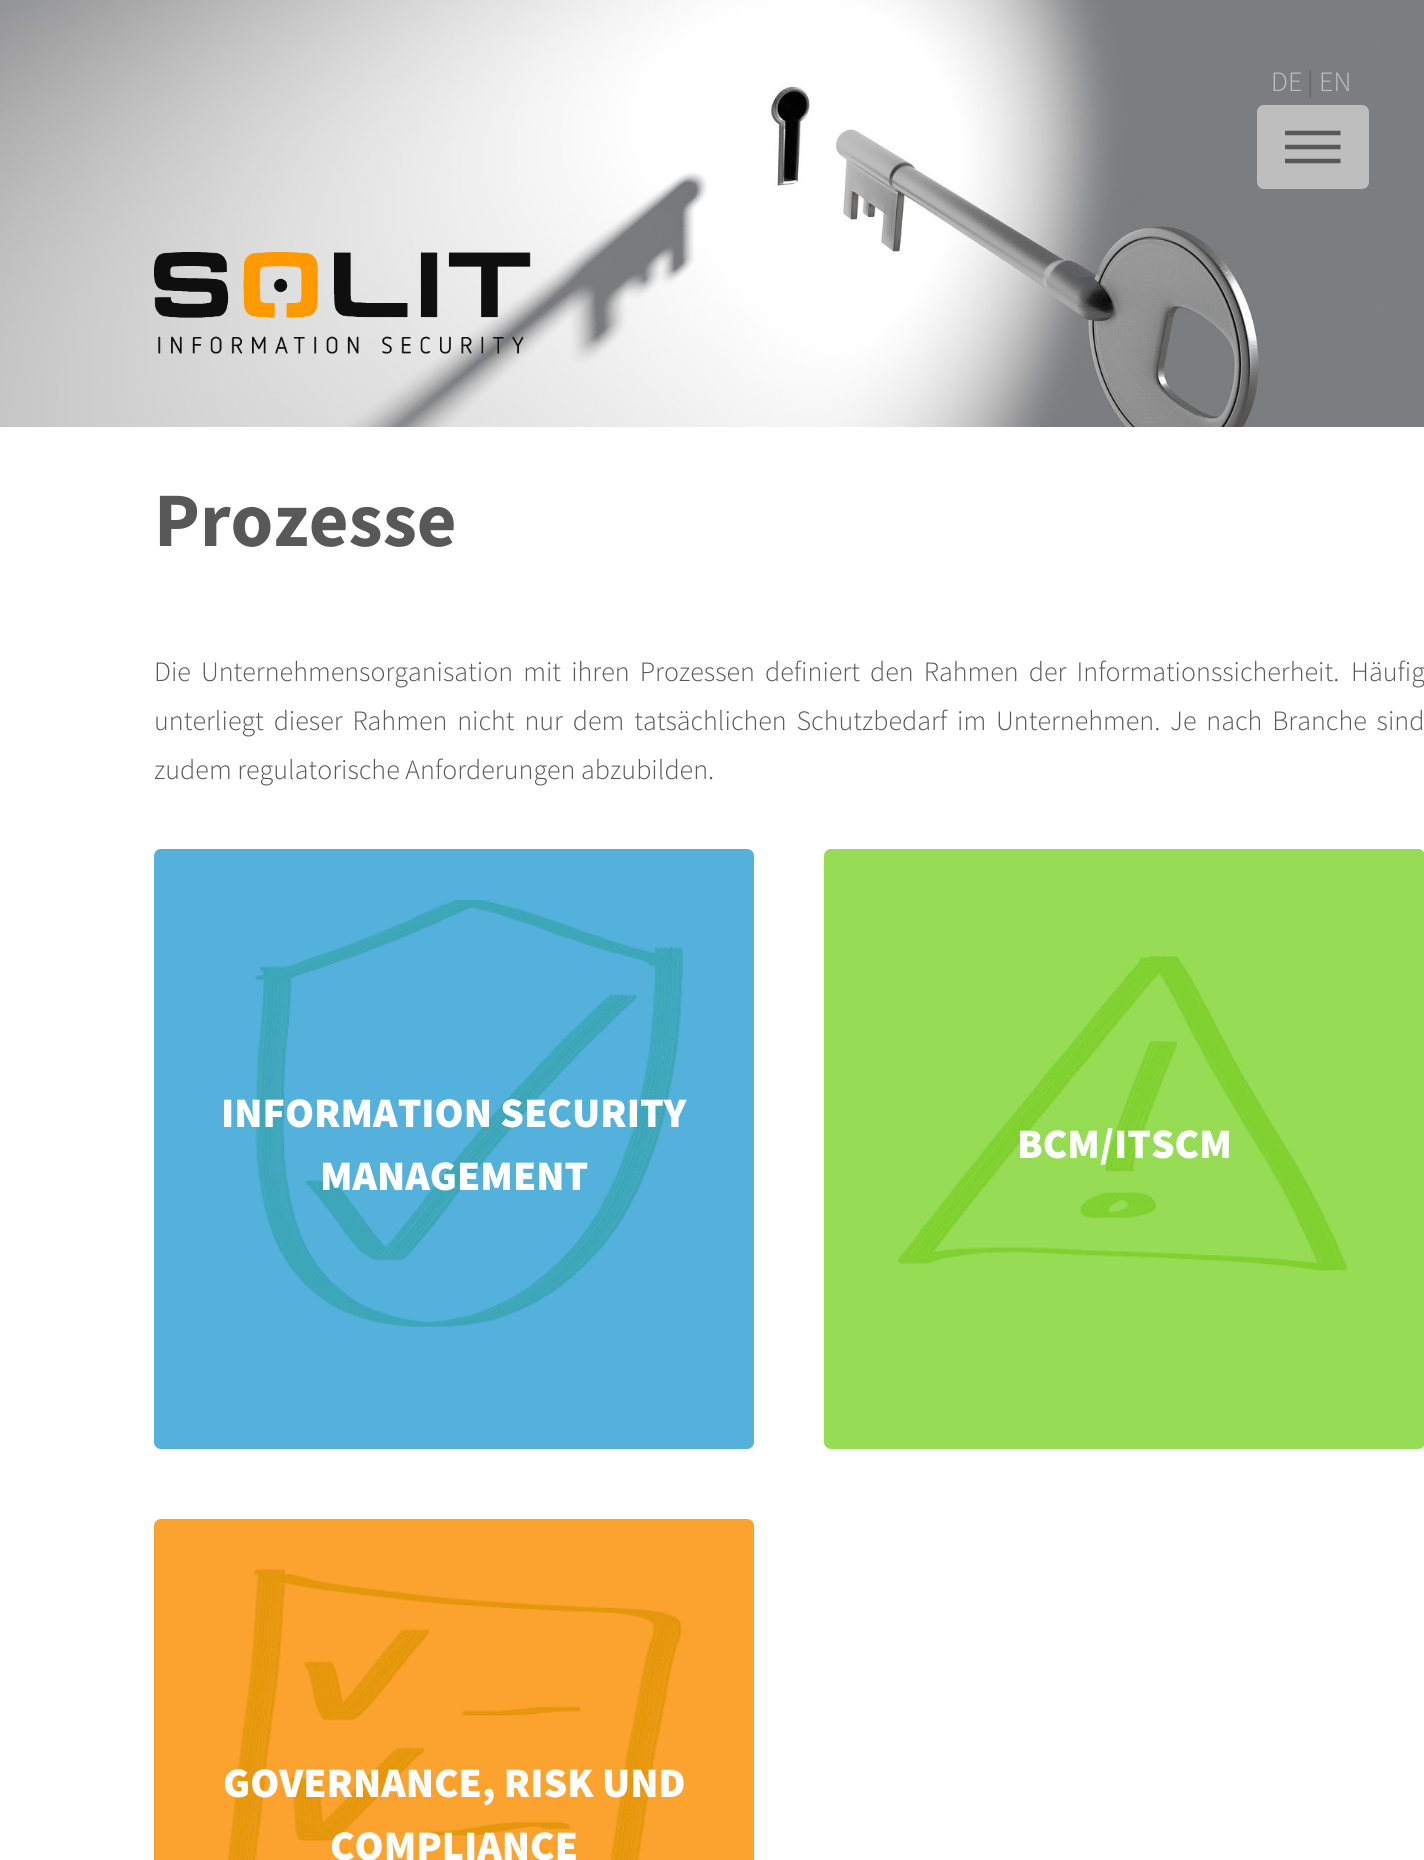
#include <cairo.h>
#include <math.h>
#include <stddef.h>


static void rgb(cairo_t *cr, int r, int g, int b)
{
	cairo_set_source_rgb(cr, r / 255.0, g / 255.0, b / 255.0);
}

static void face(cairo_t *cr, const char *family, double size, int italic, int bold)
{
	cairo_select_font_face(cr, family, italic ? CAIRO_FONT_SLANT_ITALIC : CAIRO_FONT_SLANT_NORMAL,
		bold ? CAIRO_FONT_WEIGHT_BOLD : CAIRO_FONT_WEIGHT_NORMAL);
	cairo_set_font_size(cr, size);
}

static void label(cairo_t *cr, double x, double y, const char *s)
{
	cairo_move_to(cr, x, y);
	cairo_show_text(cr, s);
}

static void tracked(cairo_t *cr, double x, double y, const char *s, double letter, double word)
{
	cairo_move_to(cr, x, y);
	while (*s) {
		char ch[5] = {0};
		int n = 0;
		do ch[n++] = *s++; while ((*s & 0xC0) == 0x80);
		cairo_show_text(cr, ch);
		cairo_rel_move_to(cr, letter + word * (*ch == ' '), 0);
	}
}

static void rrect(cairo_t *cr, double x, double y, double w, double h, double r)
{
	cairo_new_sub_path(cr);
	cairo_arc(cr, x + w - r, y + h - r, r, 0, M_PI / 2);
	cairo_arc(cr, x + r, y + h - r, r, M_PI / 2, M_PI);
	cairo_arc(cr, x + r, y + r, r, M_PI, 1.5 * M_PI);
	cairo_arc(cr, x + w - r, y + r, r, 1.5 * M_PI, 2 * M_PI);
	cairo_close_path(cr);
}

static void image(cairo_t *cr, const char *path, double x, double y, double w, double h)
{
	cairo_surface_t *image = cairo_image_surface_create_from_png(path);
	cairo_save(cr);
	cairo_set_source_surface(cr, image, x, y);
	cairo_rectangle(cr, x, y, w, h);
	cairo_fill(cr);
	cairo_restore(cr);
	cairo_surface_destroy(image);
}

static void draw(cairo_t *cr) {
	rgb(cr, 255, 255, 255);
	cairo_paint(cr);
	image(cr, "image0.png", 0, 0, 1424, 427);
	face(cr, "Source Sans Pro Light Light", 28, 0, 0);
	rgb(cr, 193, 193, 193);
	label(cr, 1271, 91, "DE");
	rgb(cr, 88, 88, 88);
	label(cr, 1307, 91, "|");
	rgb(cr, 193, 193, 193);
	label(cr, 1319, 91, "EN");
	rgb(cr, 190, 190, 191);
	rrect(cr, 1257, 105, 112, 84, 7);
	cairo_fill(cr);
	cairo_save(cr);
	cairo_rectangle(cr, 1285, 119, 56, 56);
	cairo_clip(cr);
	cairo_new_path(cr);
	cairo_move_to(cr, 1284.5, 133);
	cairo_line_to(cr, 1340.5, 133);
	cairo_move_to(cr, 1284.5, 147);
	cairo_line_to(cr, 1340.5, 147);
	cairo_move_to(cr, 1284.5, 161);
	cairo_line_to(cr, 1340.5, 161);
	rgb(cr, 88, 88, 88);
	cairo_set_line_width(cr, 4.5);
	cairo_stroke(cr);
	cairo_restore(cr);
	image(cr, "image1.png", 154, 252, 377, 102);
	face(cr, "Source Sans Pro", 77, 0, 1);
	rgb(cr, 88, 88, 88);
	label(cr, 154, 546, "Prozesse");
	face(cr, "Source Sans Pro Light Light", 28, 0, 0);
	tracked(cr, 154, 681, "Die Unternehmensorganisation mit ihren Prozessen definiert den Rahmen der Informationssicherheit.", 0, 4.5);
	label(cr, 1351, 681, "Häufig");
	tracked(cr, 154, 730, "unterliegt dieser Rahmen nicht nur dem tatsächlichen Schutzbedarf im Unternehmen.", 0, 4.25);
	tracked(cr, 1170, 730, "Je nach Branche sind", 0, 4.25);
	label(cr, 154, 779, "zudem regulatorische Anforderungen abzubilden.");
	image(cr, "image2.png", 154, 849, 600, 600);
	cairo_set_source_rgba(cr, 0.18, 0.635, 0.847, 0.8);
	rrect(cr, 154, 849, 600, 600, 7);
	cairo_fill(cr);
	face(cr, "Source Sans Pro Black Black", 42, 0, 0);
	rgb(cr, 255, 255, 255);
	label(cr, 221, 1127, "INFORMATION SECURITY");
	label(cr, 320, 1190, "MANAGEMENT");
	image(cr, "image3.png", 824, 849, 600, 600);
	cairo_set_source_rgba(cr, 0.506, 0.847, 0.184, 0.8);
	rrect(cr, 824, 849, 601, 600, 7);
	cairo_fill(cr);
	rgb(cr, 255, 255, 255);
	label(cr, 1017, 1158, "BCM/ITSCM");
	image(cr, "image4.png", 154, 1519, 600, 341);
	cairo_set_source_rgba(cr, 1, 0.565, 0, 0.8);
	rrect(cr, 154, 1519, 600, 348, 7);
	cairo_fill(cr);
	rgb(cr, 255, 255, 255);
	label(cr, 223, 1797, "GOVERNANCE, RISK UND");
	label(cr, 330, 1860, "COMPLIANCE");
}

int main(void) {
	cairo_surface_t *surface = cairo_image_surface_create(CAIRO_FORMAT_RGB24, 1424, 1860);
	cairo_t *cr = cairo_create(surface);
	cairo_font_options_t *options = cairo_font_options_create();
	cairo_font_options_set_hint_metrics(options, CAIRO_HINT_METRICS_OFF);
	cairo_font_options_set_hint_style(options, CAIRO_HINT_STYLE_NONE);
	cairo_set_font_options(cr, options);
	cairo_set_miter_limit(cr, 4);
	draw(cr);
	cairo_surface_write_to_png(surface, "render.png");
	cairo_font_options_destroy(options);
	cairo_destroy(cr);
	cairo_surface_destroy(surface);
	return 0;
}
